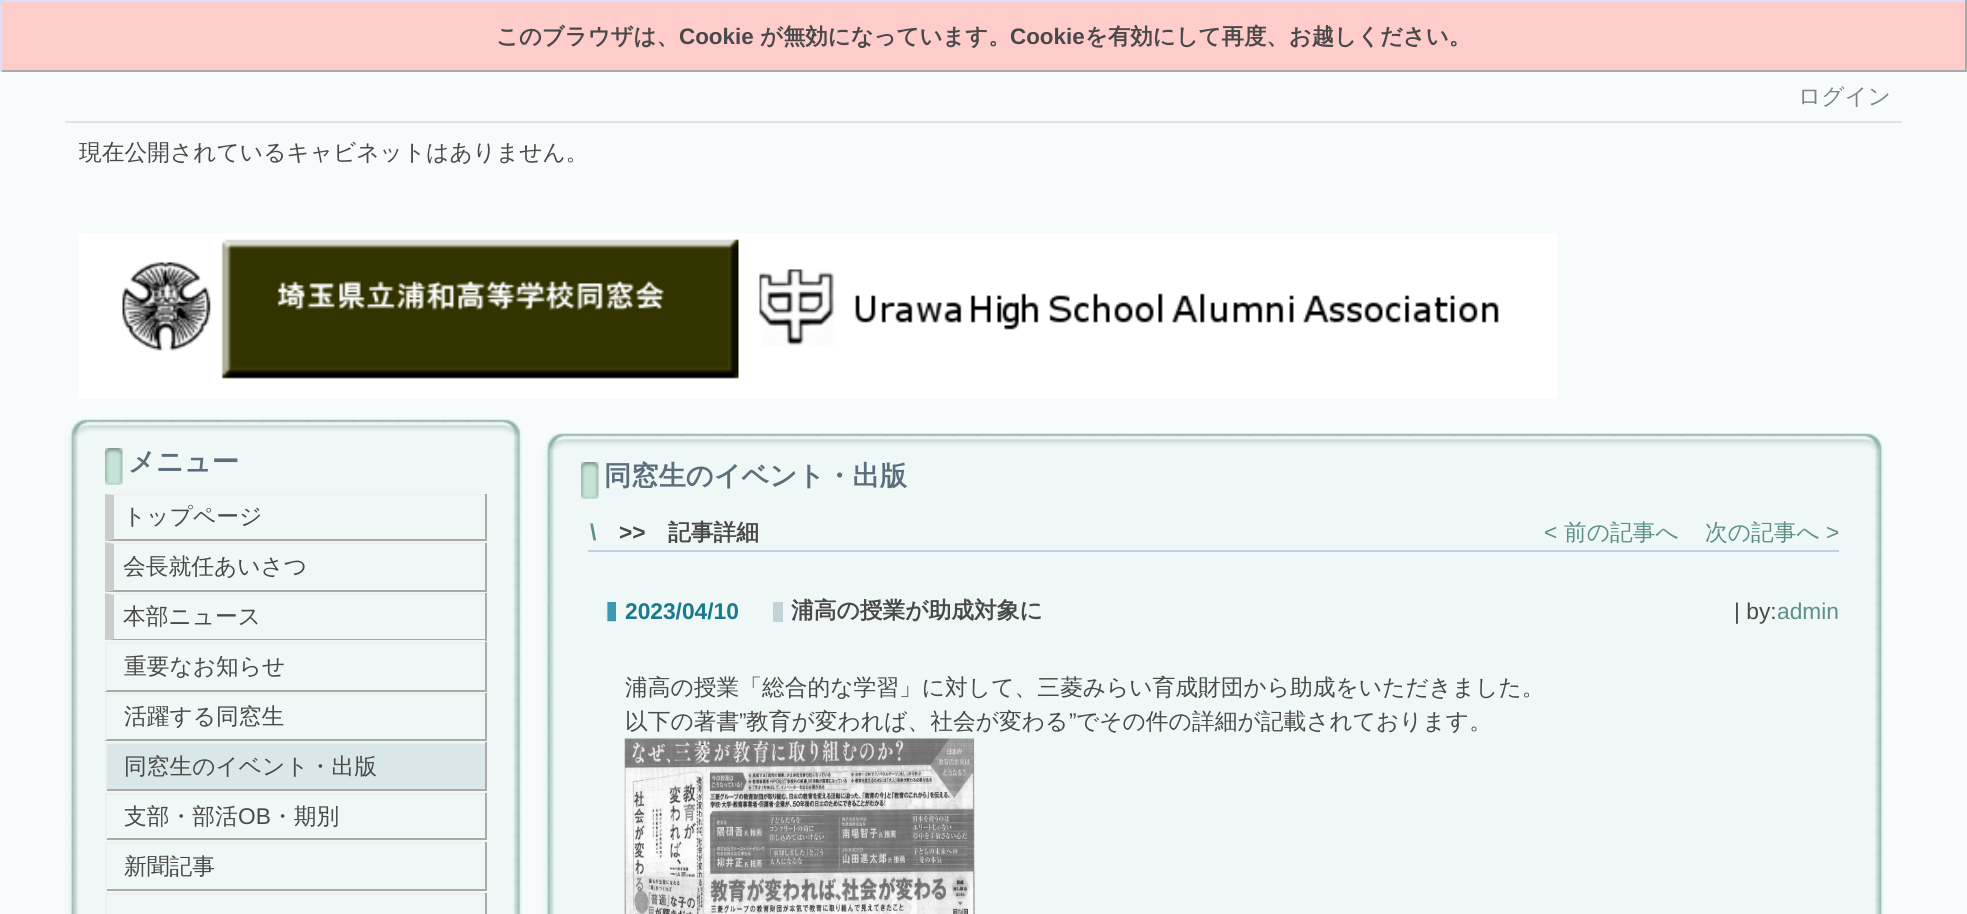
#include <cairo.h>
#include <math.h>
#include <stddef.h>


static void rgb(cairo_t *cr, int r, int g, int b)
{
	cairo_set_source_rgb(cr, r / 255.0, g / 255.0, b / 255.0);
}

static void face(cairo_t *cr, const char *family, double size, int italic, int bold)
{
	cairo_select_font_face(cr, family, italic ? CAIRO_FONT_SLANT_ITALIC : CAIRO_FONT_SLANT_NORMAL,
		bold ? CAIRO_FONT_WEIGHT_BOLD : CAIRO_FONT_WEIGHT_NORMAL);
	cairo_set_font_size(cr, size);
}

static void label(cairo_t *cr, double x, double y, const char *s)
{
	cairo_move_to(cr, x, y);
	cairo_show_text(cr, s);
}

static void rect(cairo_t *cr, double x, double y, double w, double h)
{
	cairo_rectangle(cr, x, y, w, h);
	cairo_fill(cr);
}

static void image(cairo_t *cr, const char *path, double x, double y, double w, double h)
{
	cairo_surface_t *image = cairo_image_surface_create_from_png(path);
	cairo_save(cr);
	cairo_set_source_surface(cr, image, x, y);
	cairo_rectangle(cr, x, y, w, h);
	cairo_fill(cr);
	cairo_restore(cr);
	cairo_surface_destroy(image);
}

static void draw(cairo_t *cr) {
	rgb(cr, 247, 251, 252);
	cairo_paint(cr);
	rgb(cr, 255, 204, 204);
	rect(cr, 2, 2, 1963, 68);
	rgb(cr, 221, 221, 255);
	rect(cr, 0, 0, 1967, 2);
	rgb(cr, 170, 170, 170);
	rect(cr, 1965, 0, 2, 72);
	rect(cr, 0, 70, 1967, 2);
	rgb(cr, 221, 221, 255);
	rect(cr, 0, 0, 2, 72);
	face(cr, "WenQuanYi Zen Hei", 22.4, 0, 1);
	rgb(cr, 73, 73, 73);
	label(cr, 496, 44, "このブラウザは、");
	face(cr, "Liberation Sans", 22.4, 0, 1);
	label(cr, 679, 44, "Cookie");
	face(cr, "WenQuanYi Zen Hei", 22.4, 0, 1);
	label(cr, 760, 44, "が無効になっています。");
	face(cr, "Liberation Sans", 22.4, 0, 1);
	label(cr, 1010, 44, "Cookie");
	face(cr, "WenQuanYi Zen Hei", 22.4, 0, 1);
	label(cr, 1085, 44, "を有効にして再度、お越しください。");
	rgb(cr, 223, 228, 231);
	rect(cr, 65, 121, 1837, 2);
	face(cr, "WenQuanYi Zen Hei Medium", 22.75, 0, 0);
	rgb(cr, 122, 133, 143);
	label(cr, 1798, 104, "ログイン");
	rgb(cr, 73, 73, 73);
	label(cr, 79, 160, "現在公開されているキャビネットはありません。");
	image(cr, "image0.png", 79, 233, 1479, 166);
	image(cr, "image1.png", 69, 419, 19, 17);
	image(cr, "image3.png", 87, 419, 417, 17);
	image(cr, "image6.png", 65, 435, 23, 479);
	image(cr, "image2.png", 72, 420, 16, 16);
	image(cr, "image4.png", 504, 419, 19, 17);
	image(cr, "image5.png", 514, 435, 6, 1);
	rgb(cr, 239, 247, 247);
	rect(cr, 88, 436, 416, 478);
	image(cr, "image7.png", 105, 448, 18, 37);
	face(cr, "WenQuanYi Zen Hei", 27.25, 0, 1);
	rgb(cr, 91, 110, 124);
	label(cr, 128, 471, "メニュー");
	rgb(cr, 239, 239, 239);
	cairo_new_path(cr);
	cairo_move_to(cr, 105, 494);
	cairo_line_to(cr, 486, 494);
	cairo_line_to(cr, 485, 495);
	cairo_line_to(cr, 114, 495);
	cairo_close_path(cr);
	cairo_fill(cr);
	rgb(cr, 170, 170, 170);
	rect(cr, 485, 494, 2, 47);
	cairo_new_path(cr);
	cairo_move_to(cr, 486, 541);
	cairo_line_to(cr, 105, 541);
	cairo_line_to(cr, 114, 539);
	cairo_line_to(cr, 485, 539);
	cairo_close_path(cr);
	cairo_fill(cr);
	rgb(cr, 204, 204, 204);
	cairo_new_path(cr);
	cairo_move_to(cr, 105, 541);
	cairo_line_to(cr, 105, 494);
	cairo_line_to(cr, 114, 495);
	cairo_line_to(cr, 114, 539);
	cairo_close_path(cr);
	cairo_fill(cr);
	face(cr, "WenQuanYi Zen Hei Medium", 22.75, 0, 0);
	rgb(cr, 73, 73, 73);
	label(cr, 123, 524, "トップページ");
	rgb(cr, 239, 239, 239);
	cairo_new_path(cr);
	cairo_move_to(cr, 105, 542);
	cairo_line_to(cr, 486, 542);
	cairo_line_to(cr, 485, 544);
	cairo_line_to(cr, 114, 544);
	cairo_close_path(cr);
	cairo_fill(cr);
	rgb(cr, 170, 170, 170);
	rect(cr, 485, 543, 2, 49);
	cairo_new_path(cr);
	cairo_move_to(cr, 486, 592);
	cairo_line_to(cr, 105, 592);
	cairo_line_to(cr, 114, 590);
	cairo_line_to(cr, 485, 590);
	cairo_close_path(cr);
	cairo_fill(cr);
	rgb(cr, 204, 204, 204);
	cairo_new_path(cr);
	cairo_move_to(cr, 105, 592);
	cairo_line_to(cr, 105, 542);
	cairo_line_to(cr, 114, 544);
	cairo_line_to(cr, 114, 590);
	cairo_close_path(cr);
	cairo_fill(cr);
	rgb(cr, 73, 73, 73);
	label(cr, 123, 574, "会長就任あいさつ");
	rgb(cr, 239, 239, 239);
	cairo_new_path(cr);
	cairo_move_to(cr, 105, 593);
	cairo_line_to(cr, 486, 593);
	cairo_line_to(cr, 485, 595);
	cairo_line_to(cr, 114, 595);
	cairo_close_path(cr);
	cairo_fill(cr);
	rgb(cr, 170, 170, 170);
	rect(cr, 485, 593, 2, 48);
	cairo_new_path(cr);
	cairo_move_to(cr, 486, 640);
	cairo_line_to(cr, 105, 640);
	cairo_line_to(cr, 114, 639);
	cairo_line_to(cr, 485, 639);
	cairo_close_path(cr);
	cairo_fill(cr);
	rgb(cr, 204, 204, 204);
	cairo_new_path(cr);
	cairo_move_to(cr, 105, 640);
	cairo_line_to(cr, 105, 593);
	cairo_line_to(cr, 114, 595);
	cairo_line_to(cr, 114, 639);
	cairo_close_path(cr);
	cairo_fill(cr);
	rgb(cr, 73, 73, 73);
	label(cr, 123, 624, "本部ニュース");
	rgb(cr, 239, 239, 239);
	rect(cr, 105, 642, 382, 2);
	rgb(cr, 170, 170, 170);
	rect(cr, 485, 642, 2, 49);
	rect(cr, 105, 690, 382, 2);
	rgb(cr, 239, 239, 239);
	rect(cr, 105, 642, 2, 49);
	rgb(cr, 73, 73, 73);
	label(cr, 124, 674, "重要なお知らせ");
	rgb(cr, 239, 239, 239);
	rect(cr, 105, 693, 382, 2);
	rgb(cr, 170, 170, 170);
	rect(cr, 485, 693, 2, 47);
	rect(cr, 105, 739, 382, 2);
	rgb(cr, 239, 239, 239);
	rect(cr, 105, 693, 2, 47);
	rgb(cr, 73, 73, 73);
	label(cr, 124, 724, "活躍する同窓生");
	rgb(cr, 218, 231, 233);
	rect(cr, 107, 744, 378, 45);
	rgb(cr, 239, 239, 239);
	rect(cr, 105, 742, 382, 2);
	rgb(cr, 170, 170, 170);
	rect(cr, 485, 742, 2, 49);
	rect(cr, 105, 789, 382, 2);
	rgb(cr, 239, 239, 239);
	rect(cr, 105, 742, 2, 49);
	rgb(cr, 73, 73, 73);
	label(cr, 124, 774, "同窓生のイベント・出版");
	rgb(cr, 239, 239, 239);
	rect(cr, 105, 793, 382, 2);
	rgb(cr, 170, 170, 170);
	rect(cr, 485, 793, 2, 47);
	rect(cr, 105, 838, 382, 2);
	rgb(cr, 239, 239, 239);
	rect(cr, 105, 793, 2, 47);
	rgb(cr, 73, 73, 73);
	label(cr, 124, 824, "支部・部活");
	face(cr, "Liberation Sans", 22.75, 0, 0);
	label(cr, 238, 824, "OB");
	face(cr, "WenQuanYi Zen Hei Medium", 22.75, 0, 0);
	label(cr, 271, 824, "・期別");
	rgb(cr, 239, 239, 239);
	rect(cr, 105, 842, 382, 2);
	rgb(cr, 170, 170, 170);
	rect(cr, 485, 842, 2, 49);
	rect(cr, 105, 889, 382, 2);
	rgb(cr, 239, 239, 239);
	rect(cr, 105, 842, 2, 49);
	rgb(cr, 73, 73, 73);
	label(cr, 124, 874, "新聞記事");
	rgb(cr, 239, 239, 239);
	rect(cr, 105, 893, 382, 2);
	rgb(cr, 170, 170, 170);
	rect(cr, 485, 893, 2, 21);
	rgb(cr, 239, 239, 239);
	rect(cr, 105, 893, 2, 21);
	image(cr, "image8.png", 504, 436, 19, 478);
	image(cr, "image1.png", 545, 433, 19, 17);
	image(cr, "image9.png", 563, 433, 1303, 17);
	image(cr, "image12.png", 541, 449, 23, 465);
	image(cr, "image2.png", 548, 434, 16, 16);
	image(cr, "image10.png", 1865, 433, 19, 17);
	image(cr, "image15.png", 1866, 449, 19, 465);
	image(cr, "image11.png", 1865, 434, 17, 16);
	rgb(cr, 239, 247, 247);
	rect(cr, 564, 450, 1302, 464);
	image(cr, "image7.png", 581, 462, 18, 37);
	face(cr, "WenQuanYi Zen Hei", 27.25, 0, 1);
	rgb(cr, 91, 110, 124);
	label(cr, 604, 485, "同窓生のイベント・出版");
	face(cr, "Liberation Sans", 22.75, 0, 1);
	rgb(cr, 92, 144, 132);
	label(cr, 590, 540, "\\");
	rgb(cr, 73, 73, 73);
	label(cr, 619, 540, ">>");
	face(cr, "WenQuanYi Zen Hei", 22.75, 0, 1);
	label(cr, 668, 540, "記事詳細");
	face(cr, "Liberation Sans", 22.75, 0, 0);
	rgb(cr, 92, 144, 132);
	label(cr, 1544, 540, "<");
	face(cr, "WenQuanYi Zen Hei Medium", 22.75, 0, 0);
	label(cr, 1564, 540, "前の記事へ");
	label(cr, 1705, 540, "次の記事へ");
	face(cr, "Liberation Sans", 22.75, 0, 0);
	label(cr, 1826, 540, ">");
	image(cr, "image13.png", 606, 602, 10, 20);
	face(cr, "Liberation Sans", 22.75, 0, 1);
	rgb(cr, 24, 122, 140);
	label(cr, 625, 619, "2023/04/10");
	rgb(cr, 196, 211, 215);
	rect(cr, 773, 602, 10, 20);
	face(cr, "WenQuanYi Zen Hei", 22.75, 0, 1);
	rgb(cr, 73, 73, 73);
	label(cr, 791, 618, "浦高の授業が助成対象に");
	rgb(cr, 199, 205, 230);
	rect(cr, 588, 550, 1251, 2);
	face(cr, "Liberation Sans", 22.75, 0, 0);
	rgb(cr, 73, 73, 73);
	label(cr, 1734, 619, "| by:");
	rgb(cr, 92, 144, 132);
	label(cr, 1777, 619, "admin");
	face(cr, "WenQuanYi Zen Hei Medium", 22.75, 0, 0);
	rgb(cr, 73, 73, 73);
	label(cr, 625, 695, "浦高の授業「総合的な学習」に対して、三菱みらい育成財団から助成をいただきました。");
	label(cr, 625, 729, "以下の著書");
	face(cr, "Liberation Sans", 22.75, 0, 0);
	label(cr, 739, 729, "”");
	face(cr, "WenQuanYi Zen Hei Medium", 22.75, 0, 0);
	label(cr, 746, 729, "教育が変われば、社会が変わる");
	face(cr, "Liberation Sans", 22.75, 0, 0);
	label(cr, 1069, 729, "”");
	face(cr, "WenQuanYi Zen Hei Medium", 22.75, 0, 0);
	label(cr, 1076, 729, "でその件の詳細が記載されております。");
	image(cr, "image14.png", 624, 738, 351, 176);
}

int main(void) {
	cairo_surface_t *surface = cairo_image_surface_create(CAIRO_FORMAT_RGB24, 1967, 914);
	cairo_t *cr = cairo_create(surface);
	cairo_font_options_t *options = cairo_font_options_create();
	cairo_font_options_set_hint_metrics(options, CAIRO_HINT_METRICS_OFF);
	cairo_font_options_set_hint_style(options, CAIRO_HINT_STYLE_NONE);
	cairo_set_font_options(cr, options);
	cairo_set_miter_limit(cr, 4);
	draw(cr);
	cairo_surface_write_to_png(surface, "render.png");
	cairo_font_options_destroy(options);
	cairo_destroy(cr);
	cairo_surface_destroy(surface);
	return 0;
}
